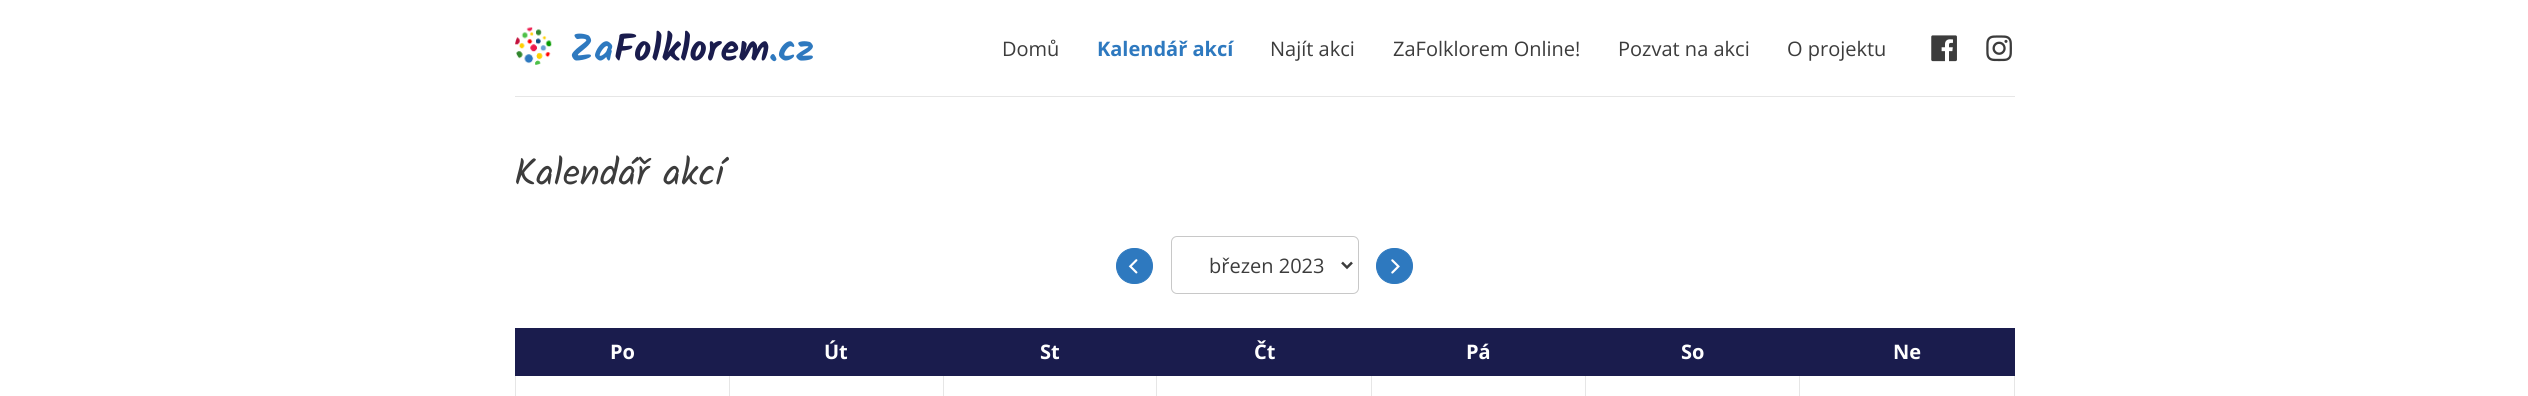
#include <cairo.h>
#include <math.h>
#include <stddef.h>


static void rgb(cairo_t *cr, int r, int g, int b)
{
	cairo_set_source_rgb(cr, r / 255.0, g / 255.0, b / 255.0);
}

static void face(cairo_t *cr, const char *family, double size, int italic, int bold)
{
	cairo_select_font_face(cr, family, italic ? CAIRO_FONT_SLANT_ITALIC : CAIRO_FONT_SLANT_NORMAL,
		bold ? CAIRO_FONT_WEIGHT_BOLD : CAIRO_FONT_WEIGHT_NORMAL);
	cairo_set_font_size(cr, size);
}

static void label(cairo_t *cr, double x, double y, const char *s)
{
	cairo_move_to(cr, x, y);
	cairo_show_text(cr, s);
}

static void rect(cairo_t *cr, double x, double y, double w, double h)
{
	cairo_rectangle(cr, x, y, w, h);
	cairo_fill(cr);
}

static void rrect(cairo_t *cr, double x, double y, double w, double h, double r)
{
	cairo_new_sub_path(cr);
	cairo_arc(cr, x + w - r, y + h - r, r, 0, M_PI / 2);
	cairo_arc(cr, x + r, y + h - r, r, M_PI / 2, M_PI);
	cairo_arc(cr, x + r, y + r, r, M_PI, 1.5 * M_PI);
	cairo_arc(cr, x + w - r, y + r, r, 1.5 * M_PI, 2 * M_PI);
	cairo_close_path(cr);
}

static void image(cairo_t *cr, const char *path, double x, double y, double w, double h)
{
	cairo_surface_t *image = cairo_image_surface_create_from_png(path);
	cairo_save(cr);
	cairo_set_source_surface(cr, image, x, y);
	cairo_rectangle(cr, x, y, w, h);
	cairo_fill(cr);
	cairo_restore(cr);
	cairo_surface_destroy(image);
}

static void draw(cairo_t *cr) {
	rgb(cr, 255, 255, 255);
	cairo_paint(cr);
	rgb(cr, 230, 230, 230);
	rect(cr, 515, 96, 1500, 1);
	image(cr, "image0.png", 515, 27, 37, 38);
	face(cr, "Kalam", 37.5, 0, 1);
	rgb(cr, 46, 121, 191);
	label(cr, 570, 61, "Za");
	rgb(cr, 26, 28, 77);
	label(cr, 614, 61, "Folklorem");
	rgb(cr, 46, 121, 191);
	label(cr, 769, 61, ".cz");
	face(cr, "Open Sans", 20, 0, 0);
	rgb(cr, 60, 60, 60);
	label(cr, 1002, 56, "Domů");
	face(cr, "Open Sans", 20, 0, 1);
	rgb(cr, 46, 121, 191);
	label(cr, 1097, 56, "Kalendář akcí");
	face(cr, "Open Sans", 20, 0, 0);
	rgb(cr, 60, 60, 60);
	label(cr, 1270, 56, "Najít akci");
	label(cr, 1393, 56, "ZaFolklorem Online!");
	label(cr, 1618, 56, "Pozvat na akci");
	label(cr, 1787, 56, "O projektu");
	image(cr, "image1.png", 1931, 35, 26, 27);
	image(cr, "image2.png", 1986, 35, 26, 27);
	face(cr, "Kalam", 37.5, 0, 0);
	label(cr, 514, 185, "Kalendář akcí");
	rgb(cr, 46, 121, 191);
	rrect(cr, 1116.5, 248.5, 36, 35, 17.5);
	cairo_fill_preserve(cr);
	cairo_set_line_width(cr, 1);
	cairo_stroke(cr);
	image(cr, "image3.png", 1128, 259, 10, 15);
	rrect(cr, 1171.5, 236.5, 187, 57, 5.5);
	rgb(cr, 200, 200, 200);
	cairo_stroke(cr);
	cairo_new_path(cr);
	cairo_move_to(cr, 1342, 262.5);
	cairo_line_to(cr, 1347, 267.5);
	cairo_line_to(cr, 1352, 262.5);
	rgb(cr, 60, 60, 60);
	cairo_set_line_width(cr, 2.5);
	cairo_stroke(cr);
	face(cr, "Open Sans", 20, 0, 0);
	label(cr, 1209, 273, "březen 2023");
	rgb(cr, 46, 121, 191);
	rrect(cr, 1376.5, 248.5, 36, 35, 17.5);
	cairo_fill_preserve(cr);
	cairo_set_line_width(cr, 1);
	cairo_stroke(cr);
	image(cr, "image4.png", 1391, 259, 9, 15);
	rgb(cr, 26, 28, 77);
	rect(cr, 515, 329, 1499, 46);
	face(cr, "Open Sans", 20, 0, 1);
	rgb(cr, 255, 255, 255);
	label(cr, 610, 359, "Po");
	label(cr, 824, 359, "Út");
	label(cr, 1040, 359, "St");
	label(cr, 1254, 359, "Čt");
	label(cr, 1466, 359, "Pá");
	label(cr, 1681, 359, "So");
	rgb(cr, 26, 28, 77);
	rect(cr, 515, 328, 1500, 1);
	rgb(cr, 230, 230, 230);
	rect(cr, 2014, 375, 1, 21);
	rgb(cr, 26, 28, 77);
	rect(cr, 2014, 328, 1, 48);
	rgb(cr, 230, 230, 230);
	rect(cr, 515, 375, 1, 21);
	rect(cr, 729, 375, 1, 21);
	rect(cr, 943, 375, 1, 21);
	rect(cr, 1156, 375, 1, 21);
	rect(cr, 1371, 375, 1, 21);
	rect(cr, 1585, 375, 1, 21);
	rect(cr, 1799, 375, 1, 21);
	rgb(cr, 26, 28, 77);
	rect(cr, 515, 375, 1500, 1);
	rgb(cr, 255, 255, 255);
	label(cr, 1893, 359, "Ne");
}

int main(void) {
	cairo_surface_t *surface = cairo_image_surface_create(CAIRO_FORMAT_RGB24, 2528, 396);
	cairo_t *cr = cairo_create(surface);
	cairo_font_options_t *options = cairo_font_options_create();
	cairo_font_options_set_hint_metrics(options, CAIRO_HINT_METRICS_OFF);
	cairo_font_options_set_hint_style(options, CAIRO_HINT_STYLE_NONE);
	cairo_set_font_options(cr, options);
	cairo_set_miter_limit(cr, 4);
	draw(cr);
	cairo_surface_write_to_png(surface, "render.png");
	cairo_font_options_destroy(options);
	cairo_destroy(cr);
	cairo_surface_destroy(surface);
	return 0;
}
